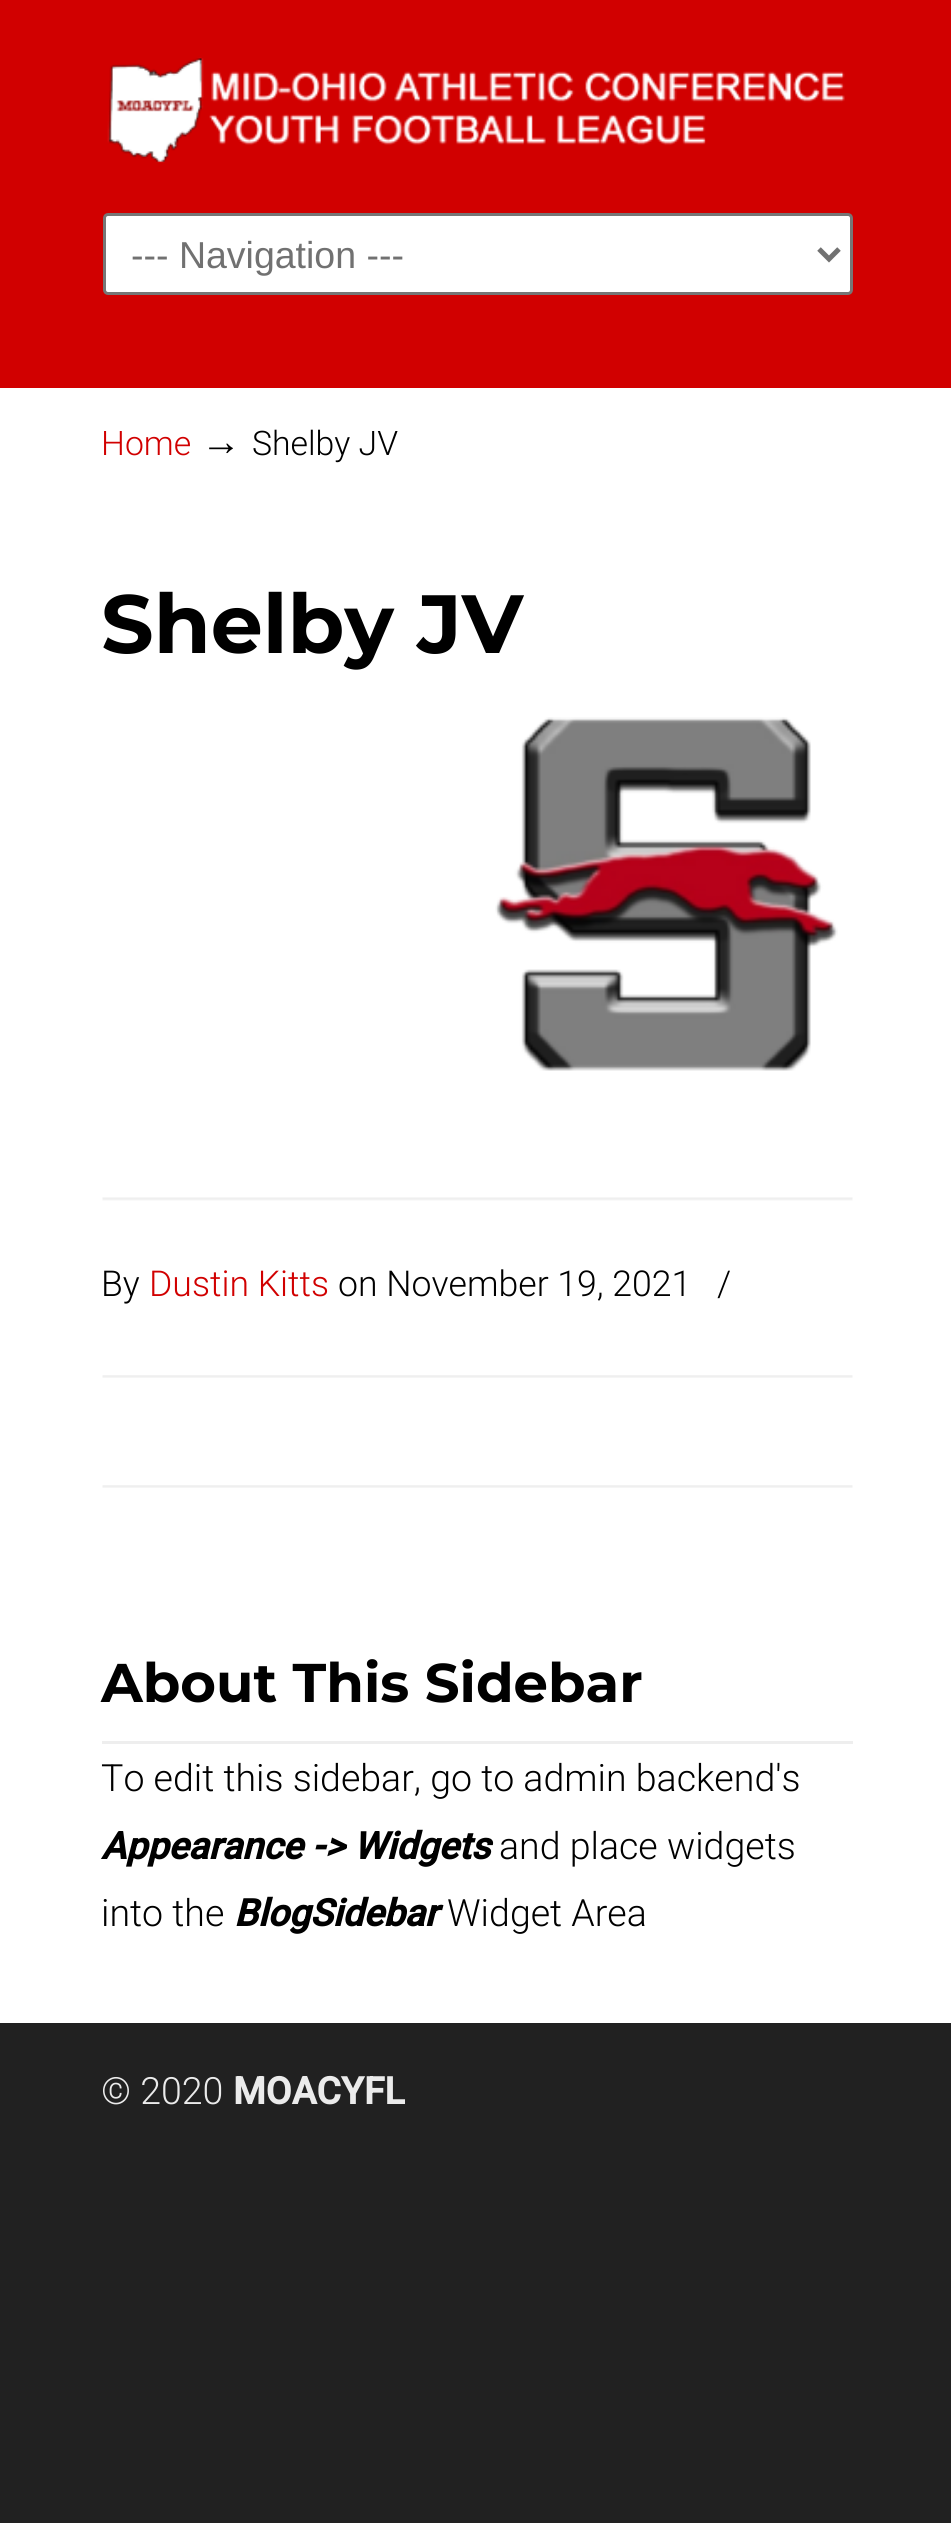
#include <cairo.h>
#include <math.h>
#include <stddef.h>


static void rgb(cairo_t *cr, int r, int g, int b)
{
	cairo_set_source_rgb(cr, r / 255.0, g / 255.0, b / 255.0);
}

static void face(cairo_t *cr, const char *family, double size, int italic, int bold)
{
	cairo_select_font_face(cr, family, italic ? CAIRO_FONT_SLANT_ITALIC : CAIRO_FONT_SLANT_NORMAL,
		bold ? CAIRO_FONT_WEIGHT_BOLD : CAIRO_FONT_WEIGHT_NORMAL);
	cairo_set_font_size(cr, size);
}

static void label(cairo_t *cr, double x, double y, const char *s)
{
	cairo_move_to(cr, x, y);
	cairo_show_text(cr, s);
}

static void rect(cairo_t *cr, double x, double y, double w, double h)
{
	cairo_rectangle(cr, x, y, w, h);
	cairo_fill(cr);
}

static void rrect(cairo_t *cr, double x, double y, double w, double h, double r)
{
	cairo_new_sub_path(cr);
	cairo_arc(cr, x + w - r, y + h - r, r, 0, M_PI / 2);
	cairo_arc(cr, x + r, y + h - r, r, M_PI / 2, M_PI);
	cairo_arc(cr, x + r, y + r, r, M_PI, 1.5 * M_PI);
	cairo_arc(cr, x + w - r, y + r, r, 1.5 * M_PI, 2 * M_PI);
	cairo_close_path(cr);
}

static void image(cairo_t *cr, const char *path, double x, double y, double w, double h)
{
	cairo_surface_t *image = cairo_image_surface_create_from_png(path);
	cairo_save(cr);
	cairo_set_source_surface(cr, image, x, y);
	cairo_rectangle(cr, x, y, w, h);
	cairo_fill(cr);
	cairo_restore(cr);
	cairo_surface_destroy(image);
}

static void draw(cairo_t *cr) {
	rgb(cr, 33, 33, 33);
	cairo_paint(cr);
	rgb(cr, 209, 0, 0);
	rect(cr, 0, 0, 951, 388);
	image(cr, "image0.png", 107, 57, 738, 106);
	rgb(cr, 255, 255, 255);
	rrect(cr, 104.5, 214.5, 747, 79, 3.5);
	cairo_fill_preserve(cr);
	rgb(cr, 118, 118, 118);
	cairo_set_line_width(cr, 3);
	cairo_stroke(cr);
	cairo_new_path(cr);
	cairo_move_to(cr, 819, 249);
	cairo_line_to(cr, 829, 259);
	cairo_line_to(cr, 839, 249);
	rgb(cr, 113, 113, 113);
	cairo_set_line_width(cr, 5);
	cairo_stroke(cr);
	face(cr, "Liberation Sans", 37.5, 0, 0);
	label(cr, 131, 268, "--- Navigation ---");
	rgb(cr, 255, 255, 255);
	rect(cr, 0, 388, 951, 1635);
	face(cr, "Roboto Light", 33.75, 0, 0);
	rgb(cr, 209, 0, 0);
	label(cr, 101, 455, "Home");
	face(cr, "Liberation Serif", 40, 0, 0);
	rgb(cr, 0, 0, 0);
	label(cr, 201, 455, "→");
	face(cr, "Roboto Light", 33.75, 0, 0);
	label(cr, 252, 455, "Shelby JV");
	face(cr, "Montserrat", 82.5, 0, 1);
	label(cr, 101, 653, "Shelby JV");
	image(cr, "image1.png", 495, 717, 343, 354);
	image(cr, "image2.png", 102, 1197, 751, 4);
	face(cr, "Roboto Light", 35.6, 0, 0);
	label(cr, 101, 1296, "By");
	rgb(cr, 209, 0, 0);
	label(cr, 149, 1296, "Dustin Kitts");
	rgb(cr, 0, 0, 0);
	label(cr, 338, 1296, "on November 19, 2021");
	label(cr, 717, 1296, "/");
	image(cr, "image3.png", 102, 1375, 751, 3);
	image(cr, "image3.png", 102, 1485, 751, 3);
	rgb(cr, 238, 238, 238);
	rect(cr, 102, 1741, 751, 3);
	face(cr, "Montserrat", 54.5, 0, 1);
	rgb(cr, 0, 0, 0);
	label(cr, 101, 1702, "About This Sidebar");
	face(cr, "Roboto Light", 37.5, 0, 0);
	label(cr, 101, 1791, "To edit this sidebar, go to admin backend's");
	face(cr, "Roboto", 37.5, 1, 1);
	label(cr, 101, 1859, "Appearance -> Widgets");
	face(cr, "Roboto Light", 37.5, 0, 0);
	label(cr, 499, 1859, "and place widgets");
	label(cr, 101, 1926, "into the");
	face(cr, "Roboto", 37.5, 1, 1);
	label(cr, 234, 1926, "BlogSidebar");
	face(cr, "Roboto Light", 37.5, 0, 0);
	label(cr, 447, 1926, "Widget Area");
	rgb(cr, 235, 235, 235);
	label(cr, 101, 2104, "© 2020");
	face(cr, "Roboto", 37.5, 0, 1);
	label(cr, 233, 2104, "MOACYFL");
}

int main(void) {
	cairo_surface_t *surface = cairo_image_surface_create(CAIRO_FORMAT_RGB24, 951, 2523);
	cairo_t *cr = cairo_create(surface);
	cairo_font_options_t *options = cairo_font_options_create();
	cairo_font_options_set_hint_metrics(options, CAIRO_HINT_METRICS_OFF);
	cairo_font_options_set_hint_style(options, CAIRO_HINT_STYLE_NONE);
	cairo_set_font_options(cr, options);
	cairo_set_miter_limit(cr, 4);
	draw(cr);
	cairo_surface_write_to_png(surface, "render.png");
	cairo_font_options_destroy(options);
	cairo_destroy(cr);
	cairo_surface_destroy(surface);
	return 0;
}
